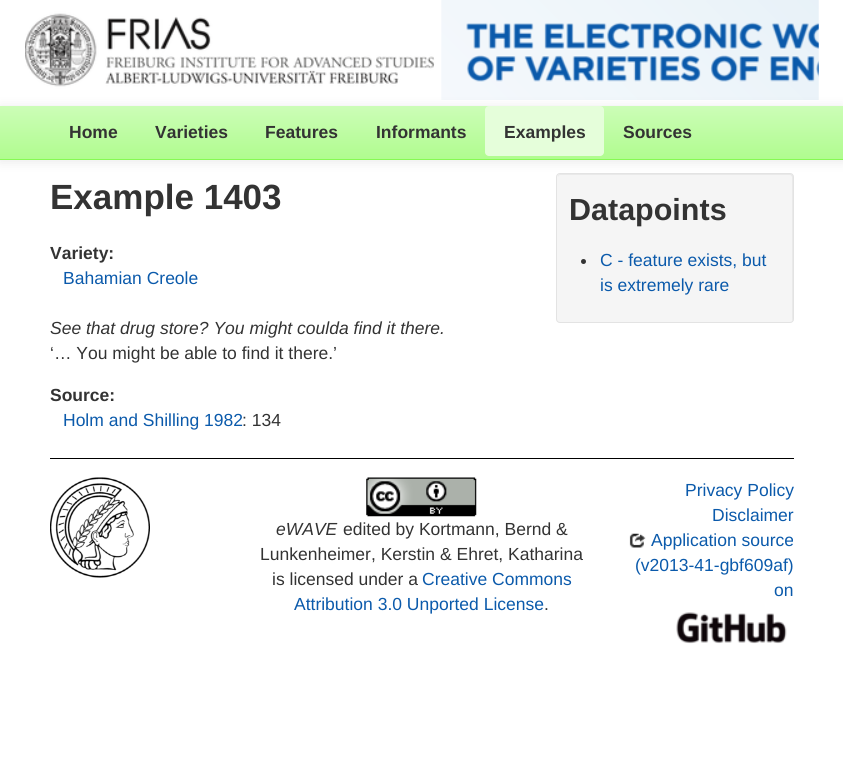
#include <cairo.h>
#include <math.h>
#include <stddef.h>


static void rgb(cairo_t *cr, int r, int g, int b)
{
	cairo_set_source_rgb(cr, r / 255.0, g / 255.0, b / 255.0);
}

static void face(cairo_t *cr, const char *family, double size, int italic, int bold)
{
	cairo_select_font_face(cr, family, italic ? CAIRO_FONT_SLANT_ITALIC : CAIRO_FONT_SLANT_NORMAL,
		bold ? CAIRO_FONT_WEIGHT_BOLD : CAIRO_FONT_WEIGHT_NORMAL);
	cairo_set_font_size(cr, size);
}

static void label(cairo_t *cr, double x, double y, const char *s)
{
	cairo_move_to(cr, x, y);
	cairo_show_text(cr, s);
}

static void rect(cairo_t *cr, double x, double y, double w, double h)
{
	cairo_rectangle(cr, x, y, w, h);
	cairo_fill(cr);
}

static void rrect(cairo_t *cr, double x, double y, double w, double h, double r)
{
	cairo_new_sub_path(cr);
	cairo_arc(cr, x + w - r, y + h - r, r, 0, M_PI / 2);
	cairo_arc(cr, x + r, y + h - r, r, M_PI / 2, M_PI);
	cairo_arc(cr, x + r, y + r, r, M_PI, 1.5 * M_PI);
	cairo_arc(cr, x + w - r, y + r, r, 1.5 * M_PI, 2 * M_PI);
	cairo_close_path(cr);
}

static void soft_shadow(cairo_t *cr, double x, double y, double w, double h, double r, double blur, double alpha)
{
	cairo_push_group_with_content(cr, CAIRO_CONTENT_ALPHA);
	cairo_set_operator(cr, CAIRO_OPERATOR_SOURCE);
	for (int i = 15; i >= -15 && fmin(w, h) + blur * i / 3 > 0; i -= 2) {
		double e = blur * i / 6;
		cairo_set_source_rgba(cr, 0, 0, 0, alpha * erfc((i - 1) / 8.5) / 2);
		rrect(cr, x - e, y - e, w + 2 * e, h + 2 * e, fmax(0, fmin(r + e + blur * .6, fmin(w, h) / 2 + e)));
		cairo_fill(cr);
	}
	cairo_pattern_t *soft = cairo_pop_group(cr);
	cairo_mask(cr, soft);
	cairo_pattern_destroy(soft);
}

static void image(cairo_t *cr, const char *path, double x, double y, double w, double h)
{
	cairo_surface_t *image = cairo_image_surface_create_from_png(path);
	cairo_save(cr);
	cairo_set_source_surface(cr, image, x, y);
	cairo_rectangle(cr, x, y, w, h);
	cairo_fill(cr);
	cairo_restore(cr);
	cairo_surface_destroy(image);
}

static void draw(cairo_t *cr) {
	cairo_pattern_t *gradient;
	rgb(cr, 255, 255, 255);
	cairo_paint(cr);
	image(cr, "image0.png", 25, 0, 794, 100);
	rgb(cr, 0, 0, 0);
	soft_shadow(cr, 0, 108, 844, 53, 0, 6, 0.1);
	gradient = cairo_pattern_create_linear(422, 106, 422, 159);
	cairo_pattern_add_color_stop_rgba(gradient, 0, 0.8, 0.992, 0.718, 1);
	cairo_pattern_add_color_stop_rgba(gradient, 1, 0.69, 0.988, 0.561, 1);
	cairo_set_source(cr, gradient);
	cairo_pattern_destroy(gradient);
	rect(cr, 0, 106, 843, 53);
	rgb(cr, 134, 250, 83);
	rect(cr, 0, 159, 843, 1);
	face(cr, "Liberation Sans", 17.5, 0, 1);
	rgb(cr, 51, 51, 51);
	label(cr, 69, 138, "Home");
	label(cr, 155, 138, "Varieties");
	label(cr, 265, 138, "Features");
	label(cr, 376, 138, "Informants");
	rgb(cr, 229, 254, 218);
	rrect(cr, 485, 106, 119, 50, 4);
	cairo_fill(cr);
	rgb(cr, 51, 51, 51);
	label(cr, 504, 138, "Examples");
	label(cr, 623, 138, "Sources");
	face(cr, "Liberation Sans", 35, 0, 1);
	label(cr, 50, 209, "Example 1403");
	face(cr, "Liberation Sans", 17.5, 0, 1);
	label(cr, 50, 259, "Variety:");
	face(cr, "Liberation Sans", 17.5, 0, 0);
	rgb(cr, 11, 90, 171);
	label(cr, 63, 284, "Bahamian Creole");
	face(cr, "Liberation Sans", 17.5, 1, 0);
	rgb(cr, 51, 51, 51);
	label(cr, 50, 334, "See that drug store? You might coulda find it there.");
	face(cr, "Liberation Sans", 17.5, 0, 0);
	label(cr, 50, 359, "‘… You might be able to find it there.’");
	face(cr, "Liberation Sans", 17.5, 0, 1);
	label(cr, 50, 401, "Source:");
	face(cr, "Liberation Sans", 17.5, 0, 0);
	rgb(cr, 11, 90, 171);
	label(cr, 63, 426, "Holm and Shilling 1982");
	rgb(cr, 51, 51, 51);
	label(cr, 242, 426, ": 134");
	rgb(cr, 245, 245, 245);
	rrect(cr, 556, 173, 238, 150, 4);
	cairo_fill(cr);
	rgb(cr, 233, 233, 233);
	cairo_new_path(cr);
	cairo_move_to(cr, 560, 175);
	cairo_line_to(cr, 790, 175);
	cairo_curve_to(cr, 791, 175, 792, 176, 792, 178);
	cairo_line_to(cr, 792, 321);
	cairo_curve_to(cr, 793, 320, 793, 319, 793, 318);
	cairo_line_to(cr, 793, 176);
	cairo_curve_to(cr, 793, 175, 792, 174, 790, 174);
	cairo_line_to(cr, 560, 174);
	cairo_curve_to(cr, 559, 174, 558, 175, 558, 176);
	cairo_line_to(cr, 558, 178);
	cairo_curve_to(cr, 558, 176, 559, 175, 560, 175);
	cairo_close_path(cr);
	cairo_fill(cr);
	rrect(cr, 556.5, 173.5, 237, 149, 3.5);
	rgb(cr, 227, 227, 227);
	cairo_set_line_width(cr, 1);
	cairo_stroke(cr);
	face(cr, "Liberation Sans", 30.5, 0, 1);
	rgb(cr, 51, 51, 51);
	label(cr, 569, 220, "Datapoints");
	cairo_new_path(cr);
	cairo_arc(cr, 583.5, 261.5, 2.5, 0, 2 * M_PI);
	cairo_fill(cr);
	face(cr, "Liberation Sans", 17.5, 0, 0);
	rgb(cr, 11, 90, 171);
	label(cr, 600, 266, "C - feature exists, but");
	label(cr, 600, 291, "is extremely rare");
	rgb(cr, 0, 0, 0);
	rect(cr, 50, 458, 744, 1);
	image(cr, "image1.png", 50, 477, 100, 101);
	image(cr, "image2.png", 366, 477, 111, 40);
	face(cr, "Liberation Sans", 17.5, 1, 0);
	rgb(cr, 51, 51, 51);
	label(cr, 276, 535, "eWAVE");
	face(cr, "Liberation Sans", 17.5, 0, 0);
	label(cr, 343, 535, "edited by Kortmann, Bernd &");
	label(cr, 260, 560, "Lunkenheimer, Kerstin & Ehret, Katharina");
	label(cr, 272, 585, "is licensed under a");
	rgb(cr, 11, 90, 171);
	label(cr, 422, 585, "Creative Commons");
	label(cr, 294, 610, "Attribution 3.0 Unported License");
	rgb(cr, 51, 51, 51);
	label(cr, 544, 610, ".");
	rgb(cr, 11, 90, 171);
	label(cr, 685, 496, "Privacy Policy");
	label(cr, 712, 521, "Disclaimer");
	image(cr, "image3.png", 629, 533, 17, 15);
	label(cr, 651, 546, "Application source");
	label(cr, 635, 571, "(v2013-41-gbf609af)");
	label(cr, 774, 596, "on");
	image(cr, "image4.png", 676, 612, 111, 32);
}

int main(void) {
	cairo_surface_t *surface = cairo_image_surface_create(CAIRO_FORMAT_RGB24, 843, 770);
	cairo_t *cr = cairo_create(surface);
	cairo_font_options_t *options = cairo_font_options_create();
	cairo_font_options_set_hint_metrics(options, CAIRO_HINT_METRICS_OFF);
	cairo_font_options_set_hint_style(options, CAIRO_HINT_STYLE_NONE);
	cairo_set_font_options(cr, options);
	cairo_set_miter_limit(cr, 4);
	draw(cr);
	cairo_surface_write_to_png(surface, "render.png");
	cairo_font_options_destroy(options);
	cairo_destroy(cr);
	cairo_surface_destroy(surface);
	return 0;
}
